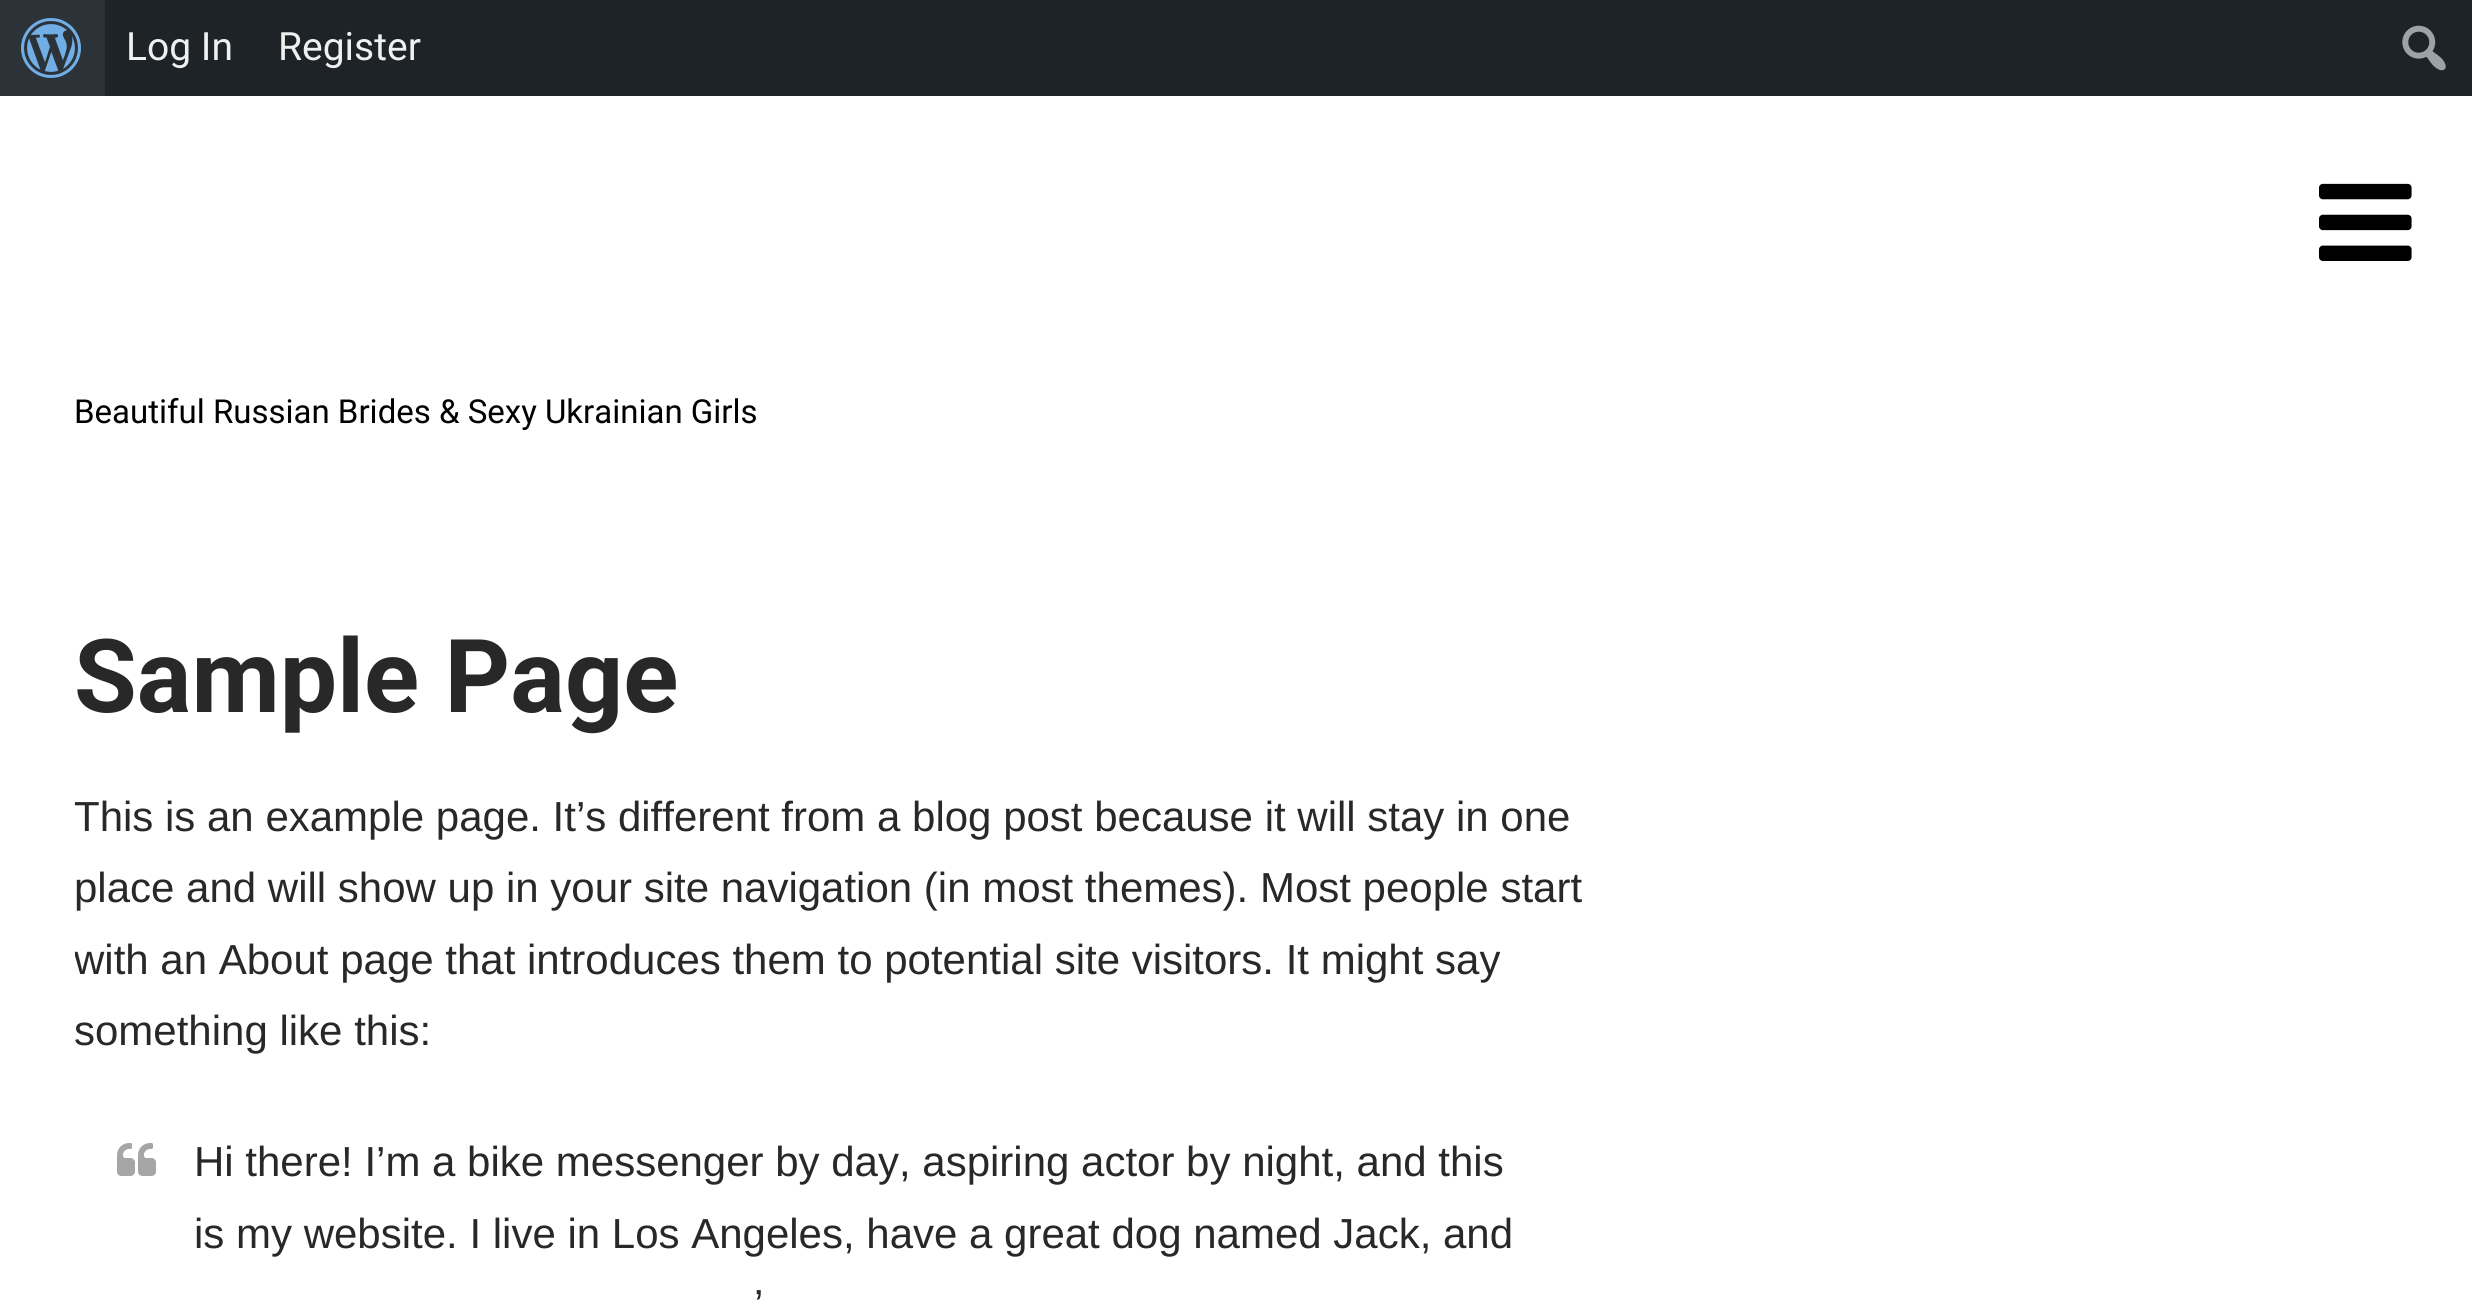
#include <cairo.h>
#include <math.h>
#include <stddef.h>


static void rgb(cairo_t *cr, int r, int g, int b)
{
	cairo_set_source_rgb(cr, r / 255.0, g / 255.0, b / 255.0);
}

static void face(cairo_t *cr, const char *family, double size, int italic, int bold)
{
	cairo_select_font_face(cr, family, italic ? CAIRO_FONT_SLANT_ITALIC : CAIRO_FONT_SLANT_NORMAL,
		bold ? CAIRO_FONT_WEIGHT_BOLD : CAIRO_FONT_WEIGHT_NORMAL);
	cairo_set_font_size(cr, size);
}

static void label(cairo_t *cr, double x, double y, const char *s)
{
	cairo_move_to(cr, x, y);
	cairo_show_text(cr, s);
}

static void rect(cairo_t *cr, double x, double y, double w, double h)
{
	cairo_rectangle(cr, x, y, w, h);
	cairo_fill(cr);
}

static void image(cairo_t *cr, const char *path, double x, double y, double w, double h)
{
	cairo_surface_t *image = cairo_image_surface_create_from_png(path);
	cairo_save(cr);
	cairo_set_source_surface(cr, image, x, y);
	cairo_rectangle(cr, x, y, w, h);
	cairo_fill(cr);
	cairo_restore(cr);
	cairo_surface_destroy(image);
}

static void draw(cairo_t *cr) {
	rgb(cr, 255, 255, 255);
	cairo_paint(cr);
	rgb(cr, 29, 35, 39);
	rect(cr, 105, 0, 2367, 96);
	rgb(cr, 44, 51, 56);
	rect(cr, 0, 0, 105, 96);
	image(cr, "image0.png", 21, 18, 60, 60);
	face(cr, "Roboto", 39, 0, 0);
	rgb(cr, 240, 240, 241);
	label(cr, 126, 60, "Log In");
	label(cr, 278, 60, "Register");
	image(cr, "image1.png", 2402, 25, 44, 46);
	image(cr, "image2.png", 2319, 183, 93, 78);
	face(cr, "Roboto", 33, 0, 0);
	rgb(cr, 0, 0, 0);
	label(cr, 74, 423, "Beautiful Russian Brides & Sexy Ukrainian Girls");
	face(cr, "Roboto", 102, 0, 1);
	rgb(cr, 40, 40, 40);
	label(cr, 74, 712, "Sample Page");
	face(cr, "Liberation Sans", 42, 0, 0);
	label(cr, 74, 831, "This is an example page. It’s different from a blog post because it will stay in one");
	label(cr, 74, 902, "place and will show up in your site navigation (in most themes). Most people start");
	cairo_save(cr);
	cairo_rectangle(cr, 75, 576, 2322, 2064);
	cairo_clip(cr);
	label(cr, 74, 974, "with an About page that introduces them to potential site visitors. It might say");
	cairo_restore(cr);
	label(cr, 74, 1045, "something like this:");
	image(cr, "image3.png", 117, 1143, 39, 33);
	label(cr, 194, 1176, "Hi there! I’m a bike messenger by day, aspiring actor by night, and this");
	label(cr, 194, 1248, "is my website. I live in Los Angeles, have a great dog named Jack, and");
	label(cr, 754, 1319, "’");
}

int main(void) {
	cairo_surface_t *surface = cairo_image_surface_create(CAIRO_FORMAT_RGB24, 2472, 1305);
	cairo_t *cr = cairo_create(surface);
	cairo_font_options_t *options = cairo_font_options_create();
	cairo_font_options_set_hint_metrics(options, CAIRO_HINT_METRICS_OFF);
	cairo_font_options_set_hint_style(options, CAIRO_HINT_STYLE_NONE);
	cairo_set_font_options(cr, options);
	cairo_set_miter_limit(cr, 4);
	draw(cr);
	cairo_surface_write_to_png(surface, "render.png");
	cairo_font_options_destroy(options);
	cairo_destroy(cr);
	cairo_surface_destroy(surface);
	return 0;
}
